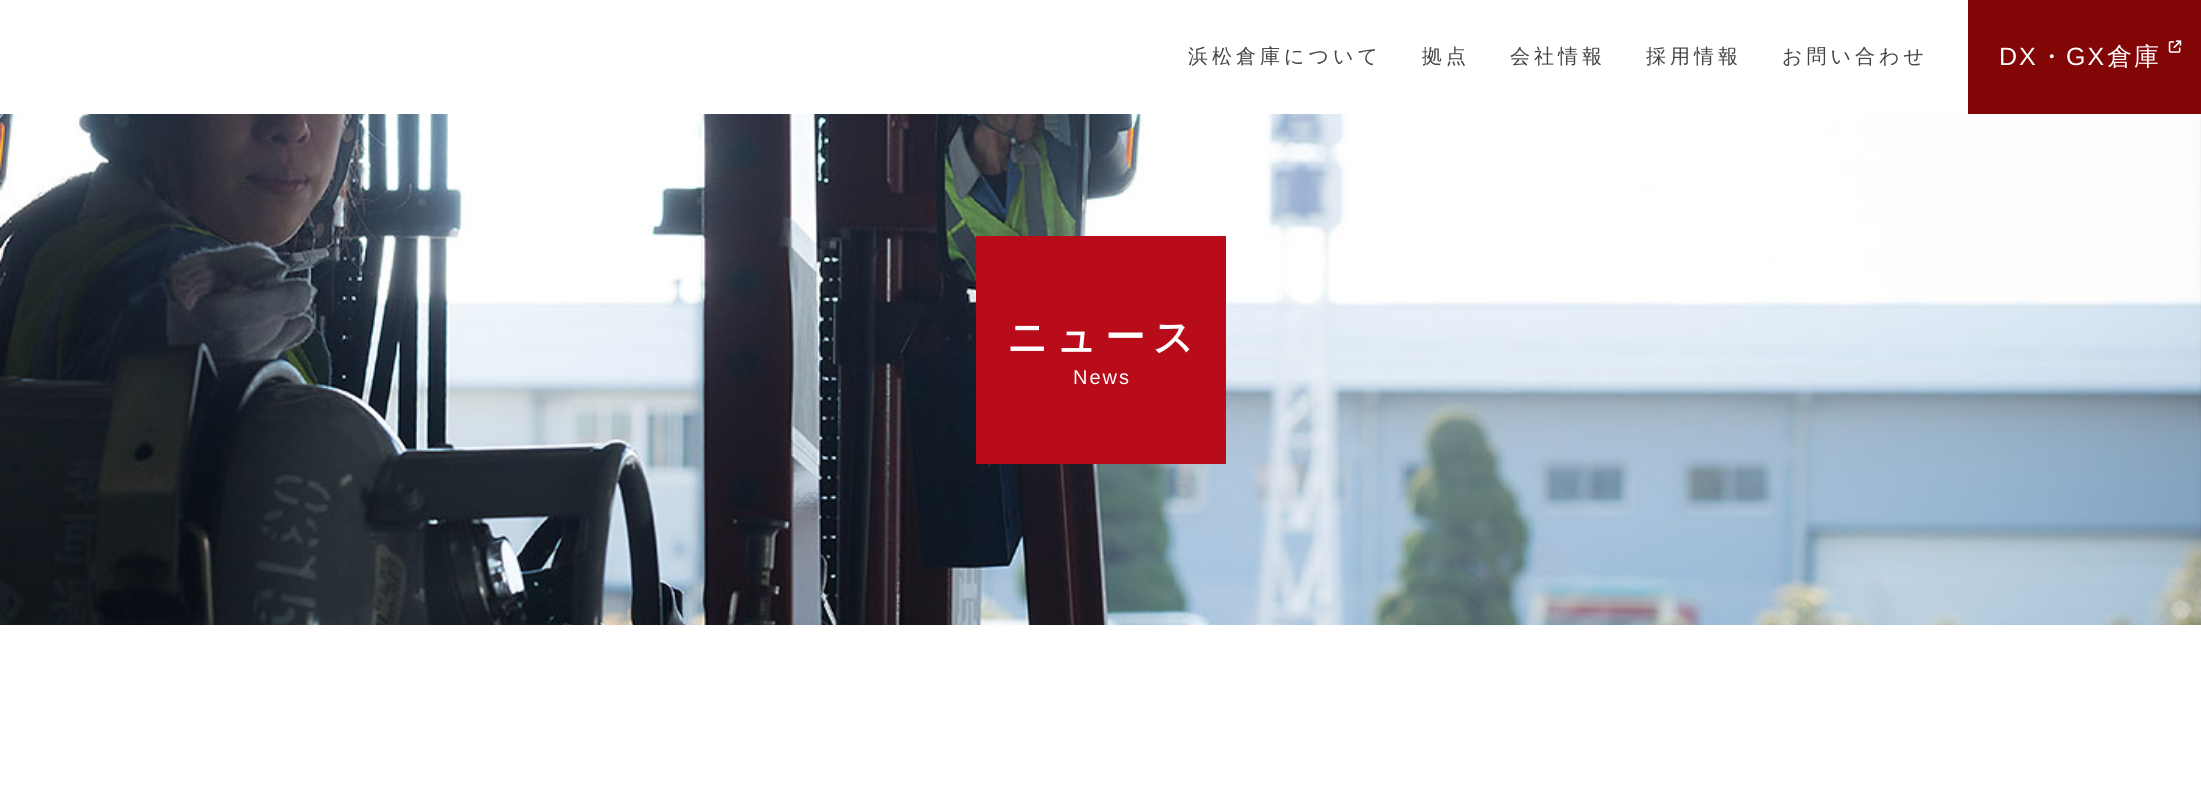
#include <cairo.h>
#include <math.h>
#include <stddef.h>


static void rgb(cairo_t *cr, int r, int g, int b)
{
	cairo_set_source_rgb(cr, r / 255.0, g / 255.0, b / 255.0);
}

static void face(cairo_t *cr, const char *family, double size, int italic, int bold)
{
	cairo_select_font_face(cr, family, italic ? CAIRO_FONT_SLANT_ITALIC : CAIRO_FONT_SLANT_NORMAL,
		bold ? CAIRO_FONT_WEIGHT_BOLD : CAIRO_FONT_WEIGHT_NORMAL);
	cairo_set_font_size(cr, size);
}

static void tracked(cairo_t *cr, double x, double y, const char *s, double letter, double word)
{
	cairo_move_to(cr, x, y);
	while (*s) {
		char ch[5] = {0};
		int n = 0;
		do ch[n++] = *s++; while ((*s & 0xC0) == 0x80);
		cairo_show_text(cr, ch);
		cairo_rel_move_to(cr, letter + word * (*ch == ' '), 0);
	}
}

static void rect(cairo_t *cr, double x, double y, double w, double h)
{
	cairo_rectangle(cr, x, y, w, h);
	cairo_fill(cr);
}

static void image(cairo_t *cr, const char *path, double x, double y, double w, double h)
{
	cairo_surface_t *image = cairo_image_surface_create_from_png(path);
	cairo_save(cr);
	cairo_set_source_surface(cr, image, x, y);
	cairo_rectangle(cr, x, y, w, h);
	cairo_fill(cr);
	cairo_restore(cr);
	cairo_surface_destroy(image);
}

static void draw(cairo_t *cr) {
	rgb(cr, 255, 255, 255);
	cairo_paint(cr);
	face(cr, "WenQuanYi Zen Hei Medium", 20, 0, 0);
	rgb(cr, 68, 68, 68);
	tracked(cr, 1188, 63, "浜松倉庫について", 4, 0);
	tracked(cr, 1422, 63, "拠点", 4, 0);
	tracked(cr, 1510, 63, "会社情報", 4, 0);
	tracked(cr, 1646, 63, "採用情報", 4, 0);
	tracked(cr, 1782, 63, "お問い合わせ", 4, 0);
	rgb(cr, 131, 6, 6);
	rect(cr, 1968, 0, 233, 114);
	face(cr, "Liberation Sans", 25, 0, 0);
	rgb(cr, 255, 255, 255);
	tracked(cr, 1999, 65, "DX", 2, 0);
	face(cr, "WenQuanYi Zen Hei Medium", 25, 0, 0);
	tracked(cr, 2039, 65, "・", 2, 0);
	face(cr, "Liberation Sans", 25, 0, 0);
	tracked(cr, 2066, 65, "GX", 2, 0);
	face(cr, "WenQuanYi Zen Hei Medium", 25, 0, 0);
	tracked(cr, 2107, 65, "倉庫", 2, 0);
	image(cr, "image0.png", 2168, 40, 14, 13);
	image(cr, "image1.png", 0, 114, 2201, 511);
	rgb(cr, 185, 12, 26);
	rect(cr, 976, 236, 250, 228);
	face(cr, "WenQuanYi Zen Hei", 40, 0, 1);
	rgb(cr, 255, 255, 255);
	tracked(cr, 1007, 351, "ニュース", 8, 0);
	face(cr, "Liberation Sans", 20, 0, 0);
	tracked(cr, 1073, 384, "News", 2, 0);
}

int main(void) {
	cairo_surface_t *surface = cairo_image_surface_create(CAIRO_FORMAT_RGB24, 2201, 787);
	cairo_t *cr = cairo_create(surface);
	cairo_font_options_t *options = cairo_font_options_create();
	cairo_font_options_set_hint_metrics(options, CAIRO_HINT_METRICS_OFF);
	cairo_font_options_set_hint_style(options, CAIRO_HINT_STYLE_NONE);
	cairo_set_font_options(cr, options);
	cairo_set_miter_limit(cr, 4);
	draw(cr);
	cairo_surface_write_to_png(surface, "render.png");
	cairo_font_options_destroy(options);
	cairo_destroy(cr);
	cairo_surface_destroy(surface);
	return 0;
}
